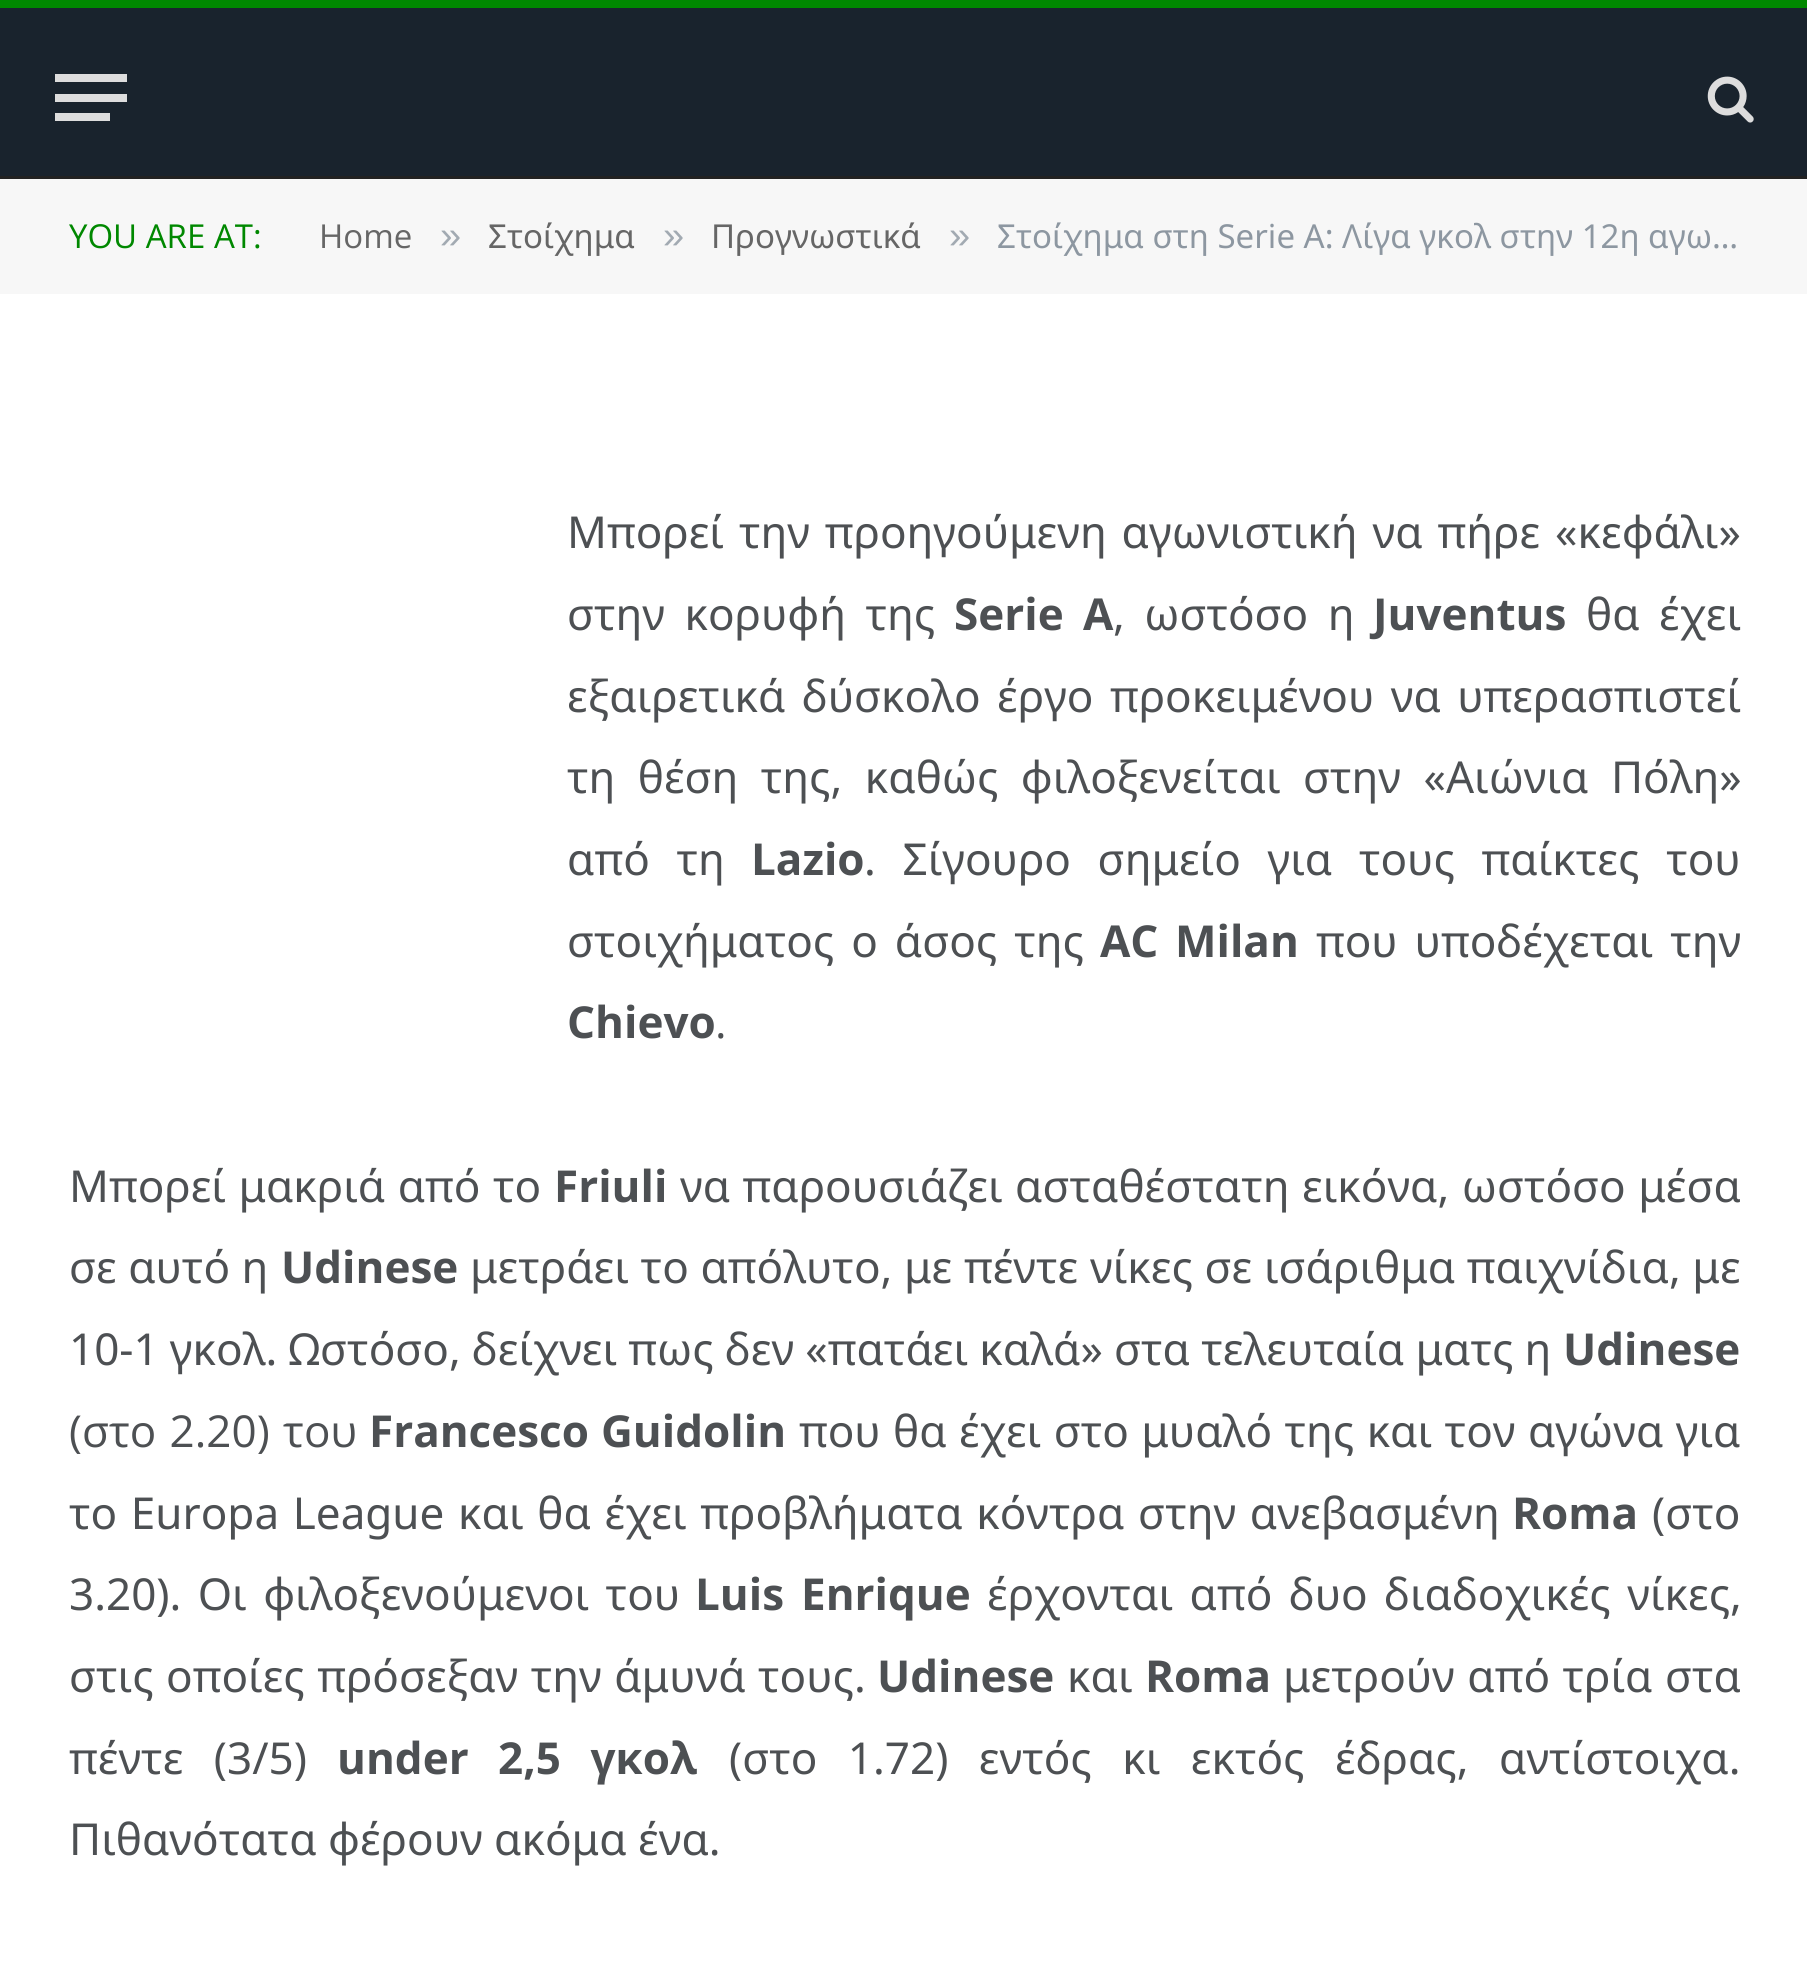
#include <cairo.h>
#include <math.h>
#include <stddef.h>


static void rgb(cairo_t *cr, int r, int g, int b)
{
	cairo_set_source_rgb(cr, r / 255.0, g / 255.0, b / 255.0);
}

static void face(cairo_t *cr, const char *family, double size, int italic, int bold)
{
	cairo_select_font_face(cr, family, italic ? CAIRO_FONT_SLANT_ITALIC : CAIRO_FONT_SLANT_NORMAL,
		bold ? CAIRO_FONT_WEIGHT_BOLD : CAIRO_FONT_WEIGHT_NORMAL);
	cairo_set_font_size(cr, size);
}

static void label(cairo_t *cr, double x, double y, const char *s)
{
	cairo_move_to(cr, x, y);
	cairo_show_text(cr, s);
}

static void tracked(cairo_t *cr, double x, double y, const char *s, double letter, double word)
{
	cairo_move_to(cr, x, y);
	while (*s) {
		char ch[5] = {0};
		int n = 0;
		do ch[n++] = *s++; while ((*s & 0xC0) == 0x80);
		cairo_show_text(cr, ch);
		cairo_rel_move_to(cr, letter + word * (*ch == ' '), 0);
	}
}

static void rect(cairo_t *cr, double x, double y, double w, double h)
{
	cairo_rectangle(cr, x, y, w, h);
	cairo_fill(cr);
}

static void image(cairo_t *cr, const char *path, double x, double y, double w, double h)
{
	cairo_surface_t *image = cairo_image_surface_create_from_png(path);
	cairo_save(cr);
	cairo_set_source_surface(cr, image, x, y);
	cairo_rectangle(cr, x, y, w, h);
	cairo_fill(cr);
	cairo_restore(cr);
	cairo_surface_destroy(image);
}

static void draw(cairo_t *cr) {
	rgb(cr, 255, 255, 255);
	cairo_paint(cr);
	rgb(cr, 25, 35, 45);
	rect(cr, 0, 8, 1807, 168);
	rgb(cr, 0, 136, 0);
	rect(cr, 0, 0, 1807, 8);
	rgb(cr, 34, 34, 34);
	rect(cr, 0, 176, 1807, 3);
	rgb(cr, 221, 221, 221);
	rect(cr, 55, 113, 55, 8);
	rect(cr, 55, 74, 72, 8);
	rect(cr, 55, 94, 72, 8);
	image(cr, "image0.png", 1707, 76, 47, 47);
	rgb(cr, 247, 247, 247);
	rect(cr, 0, 179, 1807, 115);
	face(cr, "Open Sans", 33, 0, 0);
	rgb(cr, 0, 136, 0);
	label(cr, 69, 248, "YOU ARE AT:");
	rgb(cr, 102, 102, 102);
	label(cr, 319, 248, "Home");
	face(cr, "Liberation Sans", 38, 0, 0);
	rgb(cr, 162, 170, 178);
	label(cr, 440, 248, "»");
	face(cr, "Noto Sans", 33, 0, 0);
	rgb(cr, 102, 102, 102);
	label(cr, 488, 248, "Στοίχημα");
	face(cr, "Liberation Sans", 38, 0, 0);
	rgb(cr, 162, 170, 178);
	label(cr, 663, 248, "»");
	face(cr, "Noto Sans", 33, 0, 0);
	rgb(cr, 102, 102, 102);
	label(cr, 711, 248, "Προγνωστικά");
	face(cr, "Liberation Sans", 38, 0, 0);
	rgb(cr, 162, 170, 178);
	label(cr, 949, 248, "»");
	face(cr, "Noto Sans", 33, 0, 0);
	rgb(cr, 141, 151, 161);
	label(cr, 997, 248, "Στοίχημα στη Serie A: Λίγα γκολ στην 12η αγω…");
	face(cr, "Noto Sans", 44, 0, 0);
	rgb(cr, 77, 80, 83);
	tracked(cr, 567, 548, "Μπορεί την προηγούμενη αγωνιστική να πήρε «κεφάλι»", 0, 3.5);
	tracked(cr, 567, 630, "στην κορυφή της", 0, 8);
	face(cr, "Open Sans", 44, 0, 1);
	label(cr, 954, 630, "Serie");
	label(cr, 1083, 630, "A");
	face(cr, "Noto Sans", 44, 0, 0);
	tracked(cr, 1113, 630, ", ωστόσο η", 0, 8);
	face(cr, "Open Sans", 44, 0, 1);
	label(cr, 1373, 630, "Juventus");
	face(cr, "Noto Sans", 44, 0, 0);
	tracked(cr, 1586, 630, "θα έχει", 0, 8);
	tracked(cr, 567, 712, "εξαιρετικά δύσκολο έργο προκειμένου να υπερασπιστεί", 0, 5);
	tracked(cr, 567, 793, "τη θέση της, καθώς φιλοξενείται στην «Αιώνια Πόλη»", 0, 11);
	tracked(cr, 567, 875, "από τη", 0, 15.25);
	face(cr, "Open Sans", 44, 0, 1);
	label(cr, 751, 875, "Lazio");
	face(cr, "Noto Sans", 44, 0, 0);
	tracked(cr, 864, 875, ". Σίγουρο σημείο για τους παίκτες του", 0, 15.25);
	tracked(cr, 567, 957, "στοιχήματος ο άσος της", 0, 5.5);
	face(cr, "Open Sans", 44, 0, 1);
	label(cr, 1100, 957, "AC");
	label(cr, 1175, 957, "Milan");
	face(cr, "Noto Sans", 44, 0, 0);
	tracked(cr, 1316, 957, "που υποδέχεται την", 0, 5.5);
	face(cr, "Open Sans", 44, 0, 1);
	label(cr, 567, 1038, "Chievo");
	face(cr, "Open Sans", 44, 0, 0);
	label(cr, 715, 1038, ".");
	face(cr, "Noto Sans", 44, 0, 0);
	tracked(cr, 69, 1202, "Μπορεί μακριά από το", 0, 1);
	face(cr, "Open Sans", 44, 0, 1);
	label(cr, 554, 1202, "Friuli");
	face(cr, "Noto Sans", 44, 0, 0);
	tracked(cr, 680, 1202, "να παρουσιάζει ασταθέστατη εικόνα, ωστόσο μέσα", 0, 1);
	label(cr, 69, 1283, "σε αυτό η");
	face(cr, "Open Sans", 44, 0, 1);
	label(cr, 281, 1283, "Udinese");
	face(cr, "Noto Sans", 44, 0, 0);
	tracked(cr, 470, 1283, "μετράει το απόλυτο, με πέντε νίκες σε ισάριθμα παιχνίδια, με", 0, 0.25);
	tracked(cr, 69, 1365, "10-1 γκολ. Ωστόσο, δείχνει πως δεν «πατάει καλά» στα τελευταία ματς η", 0, -0.25);
	face(cr, "Open Sans", 44, 0, 1);
	label(cr, 1563, 1365, "Udinese");
	face(cr, "Open Sans", 44, 0, 0);
	tracked(cr, 69, 1447, "(στο 2.20) του", 0, 2);
	face(cr, "Open Sans", 44, 0, 1);
	label(cr, 369, 1447, "Francesco");
	label(cr, 601, 1447, "Guidolin");
	face(cr, "Noto Sans", 44, 0, 0);
	tracked(cr, 799, 1447, "που θα έχει στο μυαλό της και τον αγώνα για", 0, 1);
	tracked(cr, 69, 1529, "το Europa League και θα έχει προβλήματα κόντρα στην ανεβασμένη", 0, 2.25);
	face(cr, "Open Sans", 44, 0, 1);
	label(cr, 1512, 1529, "Roma");
	face(cr, "Noto Sans", 44, 0, 0);
	label(cr, 1652, 1529, "(στο");
	tracked(cr, 69, 1610, "3.20). Οι φιλοξενούμενοι του", 0, 5);
	face(cr, "Open Sans", 44, 0, 1);
	label(cr, 695, 1610, "Luis");
	label(cr, 801, 1610, "Enrique");
	face(cr, "Noto Sans", 44, 0, 0);
	tracked(cr, 987, 1610, "έρχονται από δυο διαδοχικές νίκες,", 0, 5);
	tracked(cr, 69, 1692, "στις οποίες πρόσεξαν την άμυνά τους.", 0, 1);
	face(cr, "Open Sans", 44, 0, 1);
	label(cr, 877, 1692, "Udinese");
	face(cr, "Noto Sans", 44, 0, 0);
	label(cr, 1067, 1692, "και");
	face(cr, "Open Sans", 44, 0, 1);
	label(cr, 1145, 1692, "Roma");
	face(cr, "Noto Sans", 44, 0, 0);
	tracked(cr, 1283, 1692, "μετρούν από τρία στα", 0, 1);
	tracked(cr, 69, 1774, "πέντε (3/5)", 0, 19);
	face(cr, "Open Sans", 44, 0, 1);
	tracked(cr, 337, 1774, "under 2,5 γκολ", 0, 18);
	face(cr, "Noto Sans", 44, 0, 0);
	tracked(cr, 729, 1774, "(στο 1.72) εντός κι εκτός έδρας, αντίστοιχα.", 0, 19);
	label(cr, 69, 1855, "Πιθανότατα φέρουν ακόμα ένα.");
}

int main(void) {
	cairo_surface_t *surface = cairo_image_surface_create(CAIRO_FORMAT_RGB24, 1807, 1965);
	cairo_t *cr = cairo_create(surface);
	cairo_font_options_t *options = cairo_font_options_create();
	cairo_font_options_set_hint_metrics(options, CAIRO_HINT_METRICS_OFF);
	cairo_font_options_set_hint_style(options, CAIRO_HINT_STYLE_NONE);
	cairo_set_font_options(cr, options);
	cairo_set_miter_limit(cr, 4);
	draw(cr);
	cairo_surface_write_to_png(surface, "render.png");
	cairo_font_options_destroy(options);
	cairo_destroy(cr);
	cairo_surface_destroy(surface);
	return 0;
}
